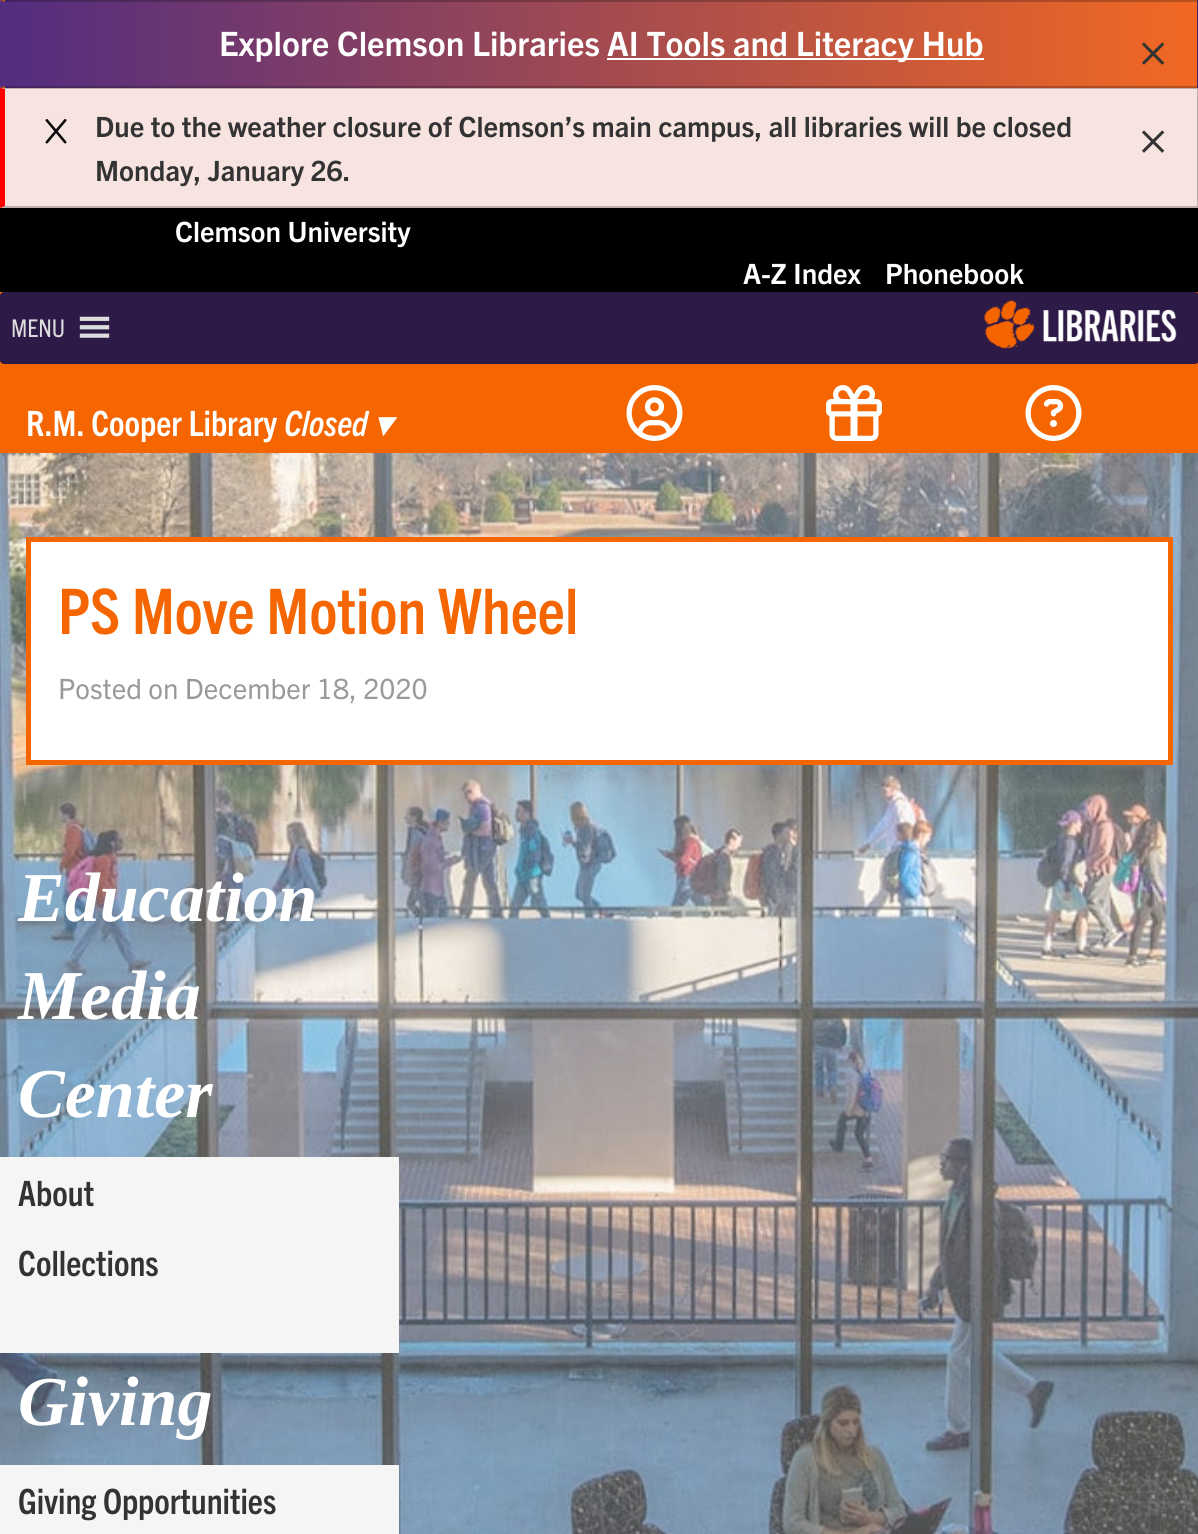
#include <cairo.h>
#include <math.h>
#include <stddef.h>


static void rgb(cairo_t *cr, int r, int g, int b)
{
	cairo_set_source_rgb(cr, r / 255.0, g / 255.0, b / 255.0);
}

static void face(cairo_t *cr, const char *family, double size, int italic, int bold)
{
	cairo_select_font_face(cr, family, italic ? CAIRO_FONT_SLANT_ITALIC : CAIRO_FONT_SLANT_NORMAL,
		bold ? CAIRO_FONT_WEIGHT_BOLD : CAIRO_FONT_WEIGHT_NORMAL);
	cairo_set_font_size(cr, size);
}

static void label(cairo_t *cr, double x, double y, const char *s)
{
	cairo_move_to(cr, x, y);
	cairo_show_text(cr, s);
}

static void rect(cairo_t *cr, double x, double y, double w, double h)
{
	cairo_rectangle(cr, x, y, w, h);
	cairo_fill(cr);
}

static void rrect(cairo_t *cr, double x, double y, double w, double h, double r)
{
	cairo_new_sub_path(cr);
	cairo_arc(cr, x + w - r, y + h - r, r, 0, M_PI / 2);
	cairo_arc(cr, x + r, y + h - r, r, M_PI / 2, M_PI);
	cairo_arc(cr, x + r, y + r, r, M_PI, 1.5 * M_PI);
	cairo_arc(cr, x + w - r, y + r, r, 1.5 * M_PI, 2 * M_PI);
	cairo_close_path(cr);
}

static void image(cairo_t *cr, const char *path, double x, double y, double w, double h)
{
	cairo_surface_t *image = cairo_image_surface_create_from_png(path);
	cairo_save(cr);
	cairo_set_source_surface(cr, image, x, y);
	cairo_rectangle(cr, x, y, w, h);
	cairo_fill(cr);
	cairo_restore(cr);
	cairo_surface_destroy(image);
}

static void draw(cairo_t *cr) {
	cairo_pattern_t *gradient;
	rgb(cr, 0, 0, 0);
	cairo_paint(cr);
	rgb(cr, 83, 45, 128);
	rect(cr, 1197, 0, 1, 88);
	gradient = cairo_pattern_create_linear(-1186, 44, 5.2, 44);
	cairo_pattern_add_color_stop_rgba(gradient, 0, 0.325, 0.176, 0.502, 1);
	cairo_pattern_add_color_stop_rgba(gradient, 1, 0.949, 0.408, 0.133, 1);
	cairo_set_source(cr, gradient);
	cairo_pattern_destroy(gradient);
	rect(cr, 0, 0, 5, 88);
	gradient = cairo_pattern_create_linear(5.2, 44, 1197, 44);
	cairo_pattern_add_color_stop_rgba(gradient, 0, 0.325, 0.176, 0.502, 1);
	cairo_pattern_add_color_stop_rgba(gradient, 1, 0.949, 0.408, 0.133, 1);
	cairo_set_source(cr, gradient);
	cairo_pattern_destroy(gradient);
	rect(cr, 5, 0, 1192, 88);
	cairo_set_source_rgba(cr, 0.039, 0.039, 0.039, 0.25);
	cairo_new_path(cr);
	cairo_move_to(cr, 0, 0);
	cairo_line_to(cr, 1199, 0);
	cairo_line_to(cr, 1197, 2);
	cairo_line_to(cr, 5, 2);
	cairo_close_path(cr);
	cairo_fill(cr);
	cairo_new_path(cr);
	cairo_move_to(cr, 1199, 0);
	cairo_line_to(cr, 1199, 88);
	cairo_line_to(cr, 1197, 86);
	cairo_line_to(cr, 1197, 2);
	cairo_close_path(cr);
	cairo_fill(cr);
	cairo_new_path(cr);
	cairo_move_to(cr, 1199, 88);
	cairo_line_to(cr, 0, 88);
	cairo_line_to(cr, 5, 86);
	cairo_line_to(cr, 1197, 86);
	cairo_close_path(cr);
	cairo_fill(cr);
	rgb(cr, 83, 45, 128);
	cairo_new_path(cr);
	cairo_move_to(cr, 0, 88);
	cairo_line_to(cr, 0, 0);
	cairo_line_to(cr, 5, 2);
	cairo_line_to(cr, 5, 86);
	cairo_close_path(cr);
	cairo_fill(cr);
	face(cr, "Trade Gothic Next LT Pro", 33.6, 0, 1);
	rgb(cr, 255, 255, 255);
	label(cr, 219, 56, "Explore Clemson Libraries");
	rect(cr, 607, 58, 377, 2);
	label(cr, 607, 56, "AI Tools and Literacy Hub");
	face(cr, "Trade Gothic Next LT Pro", 56, 0, 0);
	rgb(cr, 51, 51, 51);
	label(cr, 1137, 68, "×");
	rgb(cr, 247, 228, 225);
	rect(cr, 0, 88, 1198, 120);
	rgb(cr, 188, 174, 171);
	cairo_new_path(cr);
	cairo_move_to(cr, 0, 88);
	cairo_line_to(cr, 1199, 88);
	cairo_line_to(cr, 1197, 89);
	cairo_line_to(cr, 5, 89);
	cairo_close_path(cr);
	cairo_fill(cr);
	cairo_new_path(cr);
	cairo_move_to(cr, 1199, 88);
	cairo_line_to(cr, 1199, 208);
	cairo_line_to(cr, 1197, 206);
	cairo_line_to(cr, 1197, 89);
	cairo_close_path(cr);
	cairo_fill(cr);
	cairo_set_source_rgba(cr, 0.039, 0.039, 0.039, 0.25);
	cairo_new_path(cr);
	cairo_move_to(cr, 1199, 208);
	cairo_line_to(cr, 0, 208);
	cairo_line_to(cr, 5, 206);
	cairo_line_to(cr, 1197, 206);
	cairo_close_path(cr);
	cairo_fill(cr);
	rgb(cr, 255, 0, 0);
	cairo_new_path(cr);
	cairo_move_to(cr, 0, 208);
	cairo_line_to(cr, 0, 88);
	cairo_line_to(cr, 5, 89);
	cairo_line_to(cr, 5, 206);
	cairo_close_path(cr);
	cairo_fill(cr);
	image(cr, "image0.png", 45, 119, 22, 25);
	face(cr, "Trade Gothic Next LT Pro", 28, 0, 1);
	rgb(cr, 51, 51, 51);
	label(cr, 95, 137, "Due to the weather closure of Clemson’s main campus, all libraries will be closed");
	label(cr, 95, 181, "Monday, January 26.");
	face(cr, "Trade Gothic Next LT Pro", 56, 0, 0);
	label(cr, 1137, 156, "×");
	face(cr, "Trade Gothic Next LT Pro", 28, 0, 1);
	rgb(cr, 255, 255, 255);
	label(cr, 175, 242, "Clemson University");
	label(cr, 743, 284, "A-Z Index");
	label(cr, 885, 284, "Phonebook");
	rgb(cr, 245, 102, 0);
	rect(cr, 0, 292, 1198, 161);
	rgb(cr, 46, 26, 71);
	rrect(cr, 0, 292, 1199, 72, 4);
	cairo_fill(cr);
	face(cr, "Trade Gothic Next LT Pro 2", 24.5, 0, 0);
	rgb(cr, 221, 221, 221);
	label(cr, 11, 337, "MENU");
	image(cr, "image1.png", 79, 316, 31, 22);
	image(cr, "image2.png", 984, 300, 193, 49);
	face(cr, "Trade Gothic Next LT Pro 2", 35, 0, 1);
	rgb(cr, 255, 255, 255);
	label(cr, 26, 436, "R.M. Cooper Library");
	face(cr, "Trade Gothic Next LT Pro", 35, 1, 1);
	label(cr, 284, 436, "Closed");
	face(cr, "DejaVu Sans", 35, 1, 1);
	label(cr, 374, 436, "▾");
	image(cr, "image3.png", 626, 385, 57, 56);
	image(cr, "image4.png", 826, 385, 56, 56);
	image(cr, "image5.png", 1025, 385, 57, 56);
	image(cr, "image6.png", 0, 453, 1198, 1081);
	cairo_rectangle(cr, 28.5, 539.5, 1142, 223);
	cairo_fill_preserve(cr);
	rgb(cr, 245, 102, 0);
	cairo_set_line_width(cr, 5);
	cairo_stroke(cr);
	face(cr, "Trade Gothic Next LT Pro 2", 63, 0, 1);
	label(cr, 58, 634, "PS Move Motion Wheel");
	face(cr, "Trade Gothic Next LT Pro", 28, 0, 0);
	rgb(cr, 153, 153, 153);
	label(cr, 58, 699, "Posted on December 18, 2020");
	face(cr, "Liberation Serif", 70, 1, 1);
	rgb(cr, 255, 255, 255);
	label(cr, 18, 921, "Education");
	label(cr, 18, 1019, "Media");
	label(cr, 18, 1117, "Center");
	rgb(cr, 245, 245, 245);
	rect(cr, 0, 1157, 399, 196);
	face(cr, "Trade Gothic Next LT Pro 2", 35, 0, 1);
	rgb(cr, 51, 51, 51);
	label(cr, 18, 1206, "About");
	label(cr, 18, 1276, "Collections");
	face(cr, "Liberation Serif", 70, 1, 1);
	rgb(cr, 255, 255, 255);
	label(cr, 18, 1425, "Giving");
	rgb(cr, 245, 245, 245);
	rect(cr, 0, 1465, 399, 69);
	face(cr, "Trade Gothic Next LT Pro 2", 35, 0, 1);
	rgb(cr, 51, 51, 51);
	label(cr, 18, 1514, "Giving Opportunities");
}

int main(void) {
	cairo_surface_t *surface = cairo_image_surface_create(CAIRO_FORMAT_RGB24, 1198, 1534);
	cairo_t *cr = cairo_create(surface);
	cairo_font_options_t *options = cairo_font_options_create();
	cairo_font_options_set_hint_metrics(options, CAIRO_HINT_METRICS_OFF);
	cairo_font_options_set_hint_style(options, CAIRO_HINT_STYLE_NONE);
	cairo_set_font_options(cr, options);
	cairo_set_miter_limit(cr, 4);
	draw(cr);
	cairo_surface_write_to_png(surface, "render.png");
	cairo_font_options_destroy(options);
	cairo_destroy(cr);
	cairo_surface_destroy(surface);
	return 0;
}
